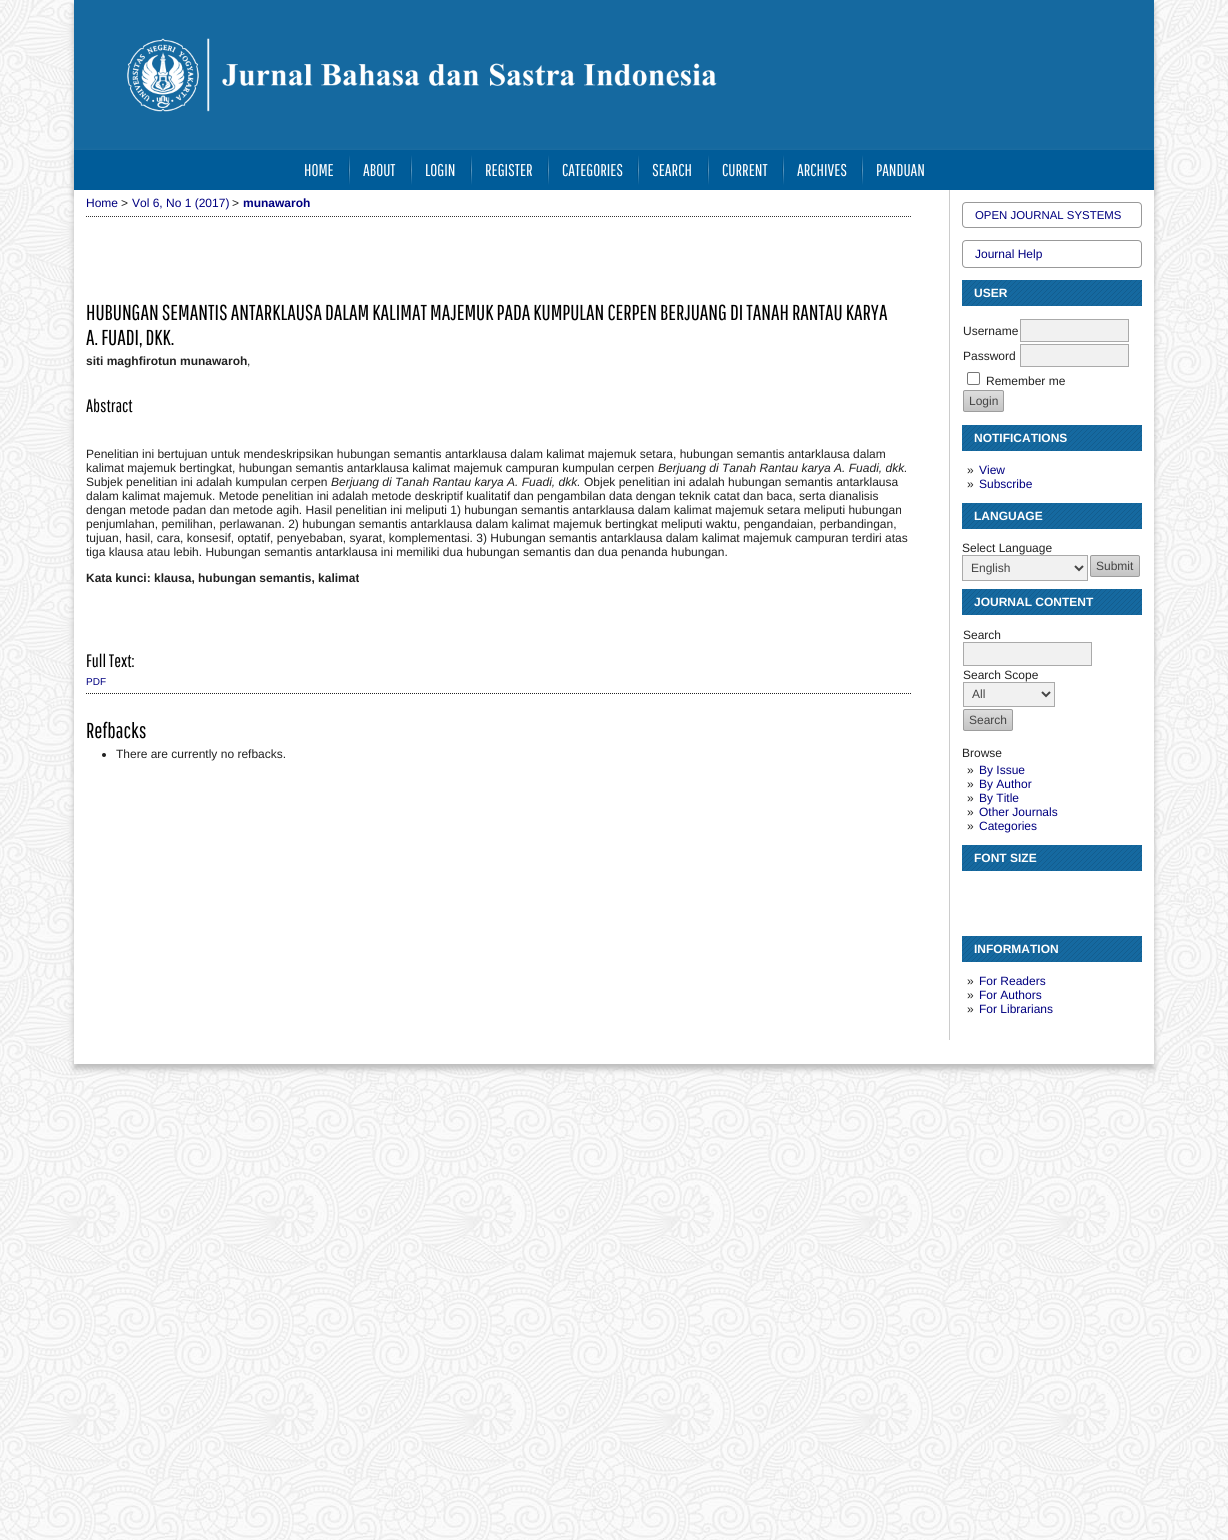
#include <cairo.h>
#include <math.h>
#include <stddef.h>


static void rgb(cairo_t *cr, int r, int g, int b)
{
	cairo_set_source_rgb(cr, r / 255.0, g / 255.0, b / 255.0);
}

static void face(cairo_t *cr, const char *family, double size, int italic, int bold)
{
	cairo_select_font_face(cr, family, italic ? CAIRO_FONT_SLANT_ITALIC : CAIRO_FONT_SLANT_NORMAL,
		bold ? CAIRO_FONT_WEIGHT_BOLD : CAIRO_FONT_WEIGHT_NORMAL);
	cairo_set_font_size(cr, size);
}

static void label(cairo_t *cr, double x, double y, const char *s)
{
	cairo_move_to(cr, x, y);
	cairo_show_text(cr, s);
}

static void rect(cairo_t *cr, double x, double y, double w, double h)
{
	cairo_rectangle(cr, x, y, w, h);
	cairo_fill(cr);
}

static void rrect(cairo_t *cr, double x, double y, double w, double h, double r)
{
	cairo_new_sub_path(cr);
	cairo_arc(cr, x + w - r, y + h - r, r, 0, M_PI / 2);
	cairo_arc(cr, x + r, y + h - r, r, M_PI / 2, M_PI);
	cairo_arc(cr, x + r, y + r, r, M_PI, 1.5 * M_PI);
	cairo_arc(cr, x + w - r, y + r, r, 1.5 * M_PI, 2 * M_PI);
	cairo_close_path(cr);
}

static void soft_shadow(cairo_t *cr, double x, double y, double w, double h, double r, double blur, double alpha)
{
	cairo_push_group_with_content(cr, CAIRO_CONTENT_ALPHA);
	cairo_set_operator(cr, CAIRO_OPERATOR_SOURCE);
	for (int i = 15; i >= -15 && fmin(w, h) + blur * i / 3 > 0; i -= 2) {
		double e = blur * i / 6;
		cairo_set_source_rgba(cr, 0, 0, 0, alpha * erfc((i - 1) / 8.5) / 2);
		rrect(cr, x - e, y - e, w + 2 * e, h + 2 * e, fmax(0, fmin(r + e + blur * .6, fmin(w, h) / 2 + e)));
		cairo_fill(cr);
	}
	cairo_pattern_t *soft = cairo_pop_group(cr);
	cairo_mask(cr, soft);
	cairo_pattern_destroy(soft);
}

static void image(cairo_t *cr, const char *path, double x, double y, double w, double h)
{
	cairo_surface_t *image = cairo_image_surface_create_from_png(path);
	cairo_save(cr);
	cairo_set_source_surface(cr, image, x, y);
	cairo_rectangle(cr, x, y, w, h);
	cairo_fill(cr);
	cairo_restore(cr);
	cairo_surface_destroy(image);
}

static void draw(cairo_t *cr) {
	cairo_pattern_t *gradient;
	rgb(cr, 255, 255, 255);
	cairo_paint(cr);
	image(cr, "image0.png", 0, 0, 1228, 1540);
	rgb(cr, 187, 187, 187);
	soft_shadow(cr, 74, 5, 1080, 190, 0, 3, 1);
	image(cr, "image1.png", 74, 0, 1080, 150);
	soft_shadow(cr, 74, 155, 1080, 914, 0, 3, 1);
	rgb(cr, 255, 255, 255);
	rect(cr, 74, 190, 1080, 874);
	rgb(cr, 0, 92, 153);
	rect(cr, 74, 150, 1080, 40);
	face(cr, "Pathway Gothic One", 17, 0, 0);
	rgb(cr, 255, 255, 255);
	label(cr, 304, 176, "HOME");
	gradient = cairo_pattern_create_linear(349, 155, 349, 185);
	cairo_pattern_add_color_stop_rgba(gradient, 0, 0, 0.361, 0.6, 1);
	cairo_pattern_add_color_stop_rgba(gradient, 0.5, 0, 0.306, 0.51, 1);
	cairo_pattern_add_color_stop_rgba(gradient, 1, 0, 0.361, 0.6, 1);
	cairo_set_source(cr, gradient);
	cairo_pattern_destroy(gradient);
	rect(cr, 348, 155, 1, 30);
	gradient = cairo_pattern_create_linear(350, 155, 350, 185);
	cairo_pattern_add_color_stop_rgba(gradient, 0, 0, 0.361, 0.6, 1);
	cairo_pattern_add_color_stop_rgba(gradient, 0.5, 0.349, 0.584, 0.741, 1);
	cairo_pattern_add_color_stop_rgba(gradient, 1, 0, 0.361, 0.6, 1);
	cairo_set_source(cr, gradient);
	cairo_pattern_destroy(gradient);
	rect(cr, 349, 155, 1, 30);
	rgb(cr, 255, 255, 255);
	label(cr, 363, 176, "ABOUT");
	gradient = cairo_pattern_create_linear(411, 155, 411, 185);
	cairo_pattern_add_color_stop_rgba(gradient, 0, 0, 0.361, 0.6, 1);
	cairo_pattern_add_color_stop_rgba(gradient, 0.5, 0, 0.306, 0.51, 1);
	cairo_pattern_add_color_stop_rgba(gradient, 1, 0, 0.361, 0.6, 1);
	cairo_set_source(cr, gradient);
	cairo_pattern_destroy(gradient);
	rect(cr, 410, 155, 1, 30);
	gradient = cairo_pattern_create_linear(412, 155, 412, 185);
	cairo_pattern_add_color_stop_rgba(gradient, 0, 0, 0.361, 0.6, 1);
	cairo_pattern_add_color_stop_rgba(gradient, 0.5, 0.349, 0.584, 0.741, 1);
	cairo_pattern_add_color_stop_rgba(gradient, 1, 0, 0.361, 0.6, 1);
	cairo_set_source(cr, gradient);
	cairo_pattern_destroy(gradient);
	rect(cr, 411, 155, 1, 30);
	rgb(cr, 255, 255, 255);
	label(cr, 425, 176, "LOGIN");
	gradient = cairo_pattern_create_linear(471, 155, 471, 185);
	cairo_pattern_add_color_stop_rgba(gradient, 0, 0, 0.361, 0.6, 1);
	cairo_pattern_add_color_stop_rgba(gradient, 0.5, 0, 0.306, 0.51, 1);
	cairo_pattern_add_color_stop_rgba(gradient, 1, 0, 0.361, 0.6, 1);
	cairo_set_source(cr, gradient);
	cairo_pattern_destroy(gradient);
	rect(cr, 470, 155, 1, 30);
	gradient = cairo_pattern_create_linear(472, 155, 472, 185);
	cairo_pattern_add_color_stop_rgba(gradient, 0, 0, 0.361, 0.6, 1);
	cairo_pattern_add_color_stop_rgba(gradient, 0.5, 0.349, 0.584, 0.741, 1);
	cairo_pattern_add_color_stop_rgba(gradient, 1, 0, 0.361, 0.6, 1);
	cairo_set_source(cr, gradient);
	cairo_pattern_destroy(gradient);
	rect(cr, 471, 155, 1, 30);
	rgb(cr, 255, 255, 255);
	label(cr, 485, 176, "REGISTER");
	gradient = cairo_pattern_create_linear(548, 155, 548, 185);
	cairo_pattern_add_color_stop_rgba(gradient, 0, 0, 0.361, 0.6, 1);
	cairo_pattern_add_color_stop_rgba(gradient, 0.5, 0, 0.306, 0.51, 1);
	cairo_pattern_add_color_stop_rgba(gradient, 1, 0, 0.361, 0.6, 1);
	cairo_set_source(cr, gradient);
	cairo_pattern_destroy(gradient);
	rect(cr, 547, 155, 1, 30);
	gradient = cairo_pattern_create_linear(549, 155, 549, 185);
	cairo_pattern_add_color_stop_rgba(gradient, 0, 0, 0.361, 0.6, 1);
	cairo_pattern_add_color_stop_rgba(gradient, 0.5, 0.349, 0.584, 0.741, 1);
	cairo_pattern_add_color_stop_rgba(gradient, 1, 0, 0.361, 0.6, 1);
	cairo_set_source(cr, gradient);
	cairo_pattern_destroy(gradient);
	rect(cr, 548, 155, 1, 30);
	rgb(cr, 255, 255, 255);
	label(cr, 562, 176, "CATEGORIES");
	gradient = cairo_pattern_create_linear(638, 155, 638, 185);
	cairo_pattern_add_color_stop_rgba(gradient, 0, 0, 0.361, 0.6, 1);
	cairo_pattern_add_color_stop_rgba(gradient, 0.5, 0, 0.306, 0.51, 1);
	cairo_pattern_add_color_stop_rgba(gradient, 1, 0, 0.361, 0.6, 1);
	cairo_set_source(cr, gradient);
	cairo_pattern_destroy(gradient);
	rect(cr, 637, 155, 1, 30);
	gradient = cairo_pattern_create_linear(639, 155, 639, 185);
	cairo_pattern_add_color_stop_rgba(gradient, 0, 0, 0.361, 0.6, 1);
	cairo_pattern_add_color_stop_rgba(gradient, 0.5, 0.349, 0.584, 0.741, 1);
	cairo_pattern_add_color_stop_rgba(gradient, 1, 0, 0.361, 0.6, 1);
	cairo_set_source(cr, gradient);
	cairo_pattern_destroy(gradient);
	rect(cr, 638, 155, 1, 30);
	rgb(cr, 255, 255, 255);
	label(cr, 652, 176, "SEARCH");
	gradient = cairo_pattern_create_linear(708, 155, 708, 185);
	cairo_pattern_add_color_stop_rgba(gradient, 0, 0, 0.361, 0.6, 1);
	cairo_pattern_add_color_stop_rgba(gradient, 0.5, 0, 0.306, 0.51, 1);
	cairo_pattern_add_color_stop_rgba(gradient, 1, 0, 0.361, 0.6, 1);
	cairo_set_source(cr, gradient);
	cairo_pattern_destroy(gradient);
	rect(cr, 707, 155, 1, 30);
	gradient = cairo_pattern_create_linear(709, 155, 709, 185);
	cairo_pattern_add_color_stop_rgba(gradient, 0, 0, 0.361, 0.6, 1);
	cairo_pattern_add_color_stop_rgba(gradient, 0.5, 0.349, 0.584, 0.741, 1);
	cairo_pattern_add_color_stop_rgba(gradient, 1, 0, 0.361, 0.6, 1);
	cairo_set_source(cr, gradient);
	cairo_pattern_destroy(gradient);
	rect(cr, 708, 155, 1, 30);
	rgb(cr, 255, 255, 255);
	label(cr, 722, 176, "CURRENT");
	gradient = cairo_pattern_create_linear(783, 155, 783, 185);
	cairo_pattern_add_color_stop_rgba(gradient, 0, 0, 0.361, 0.6, 1);
	cairo_pattern_add_color_stop_rgba(gradient, 0.5, 0, 0.306, 0.51, 1);
	cairo_pattern_add_color_stop_rgba(gradient, 1, 0, 0.361, 0.6, 1);
	cairo_set_source(cr, gradient);
	cairo_pattern_destroy(gradient);
	rect(cr, 782, 155, 1, 30);
	gradient = cairo_pattern_create_linear(784, 155, 784, 185);
	cairo_pattern_add_color_stop_rgba(gradient, 0, 0, 0.361, 0.6, 1);
	cairo_pattern_add_color_stop_rgba(gradient, 0.5, 0.349, 0.584, 0.741, 1);
	cairo_pattern_add_color_stop_rgba(gradient, 1, 0, 0.361, 0.6, 1);
	cairo_set_source(cr, gradient);
	cairo_pattern_destroy(gradient);
	rect(cr, 783, 155, 1, 30);
	rgb(cr, 255, 255, 255);
	label(cr, 797, 176, "ARCHIVES");
	gradient = cairo_pattern_create_linear(862, 155, 862, 185);
	cairo_pattern_add_color_stop_rgba(gradient, 0, 0, 0.361, 0.6, 1);
	cairo_pattern_add_color_stop_rgba(gradient, 0.5, 0, 0.306, 0.51, 1);
	cairo_pattern_add_color_stop_rgba(gradient, 1, 0, 0.361, 0.6, 1);
	cairo_set_source(cr, gradient);
	cairo_pattern_destroy(gradient);
	rect(cr, 861, 155, 1, 30);
	gradient = cairo_pattern_create_linear(863, 155, 863, 185);
	cairo_pattern_add_color_stop_rgba(gradient, 0, 0, 0.361, 0.6, 1);
	cairo_pattern_add_color_stop_rgba(gradient, 0.5, 0.349, 0.584, 0.741, 1);
	cairo_pattern_add_color_stop_rgba(gradient, 1, 0, 0.361, 0.6, 1);
	cairo_set_source(cr, gradient);
	cairo_pattern_destroy(gradient);
	rect(cr, 862, 155, 1, 30);
	rgb(cr, 255, 255, 255);
	label(cr, 876, 176, "PANDUAN");
	cairo_new_path(cr);
	cairo_move_to(cr, 86, 216.5);
	cairo_line_to(cr, 912, 216.5);
	rgb(cr, 51, 51, 51);
	cairo_set_line_width(cr, 1);
	cairo_set_dash(cr, (double[]){1, 1}, 2, 0);
	cairo_stroke(cr);
	face(cr, "Liberation Sans", 12, 0, 0);
	rgb(cr, 0, 0, 128);
	label(cr, 86, 207, "Home");
	rgb(cr, 34, 34, 34);
	label(cr, 121, 207, ">");
	rgb(cr, 0, 0, 128);
	label(cr, 132, 207, "Vol 6, No 1 (2017)");
	rgb(cr, 34, 34, 34);
	label(cr, 232, 207, ">");
	face(cr, "Liberation Sans", 12, 0, 1);
	rgb(cr, 0, 0, 128);
	label(cr, 243, 207, "munawaroh");
	face(cr, "Pathway Gothic One", 21.6, 0, 0);
	rgb(cr, 0, 0, 0);
	label(cr, 86, 320, "HUBUNGAN SEMANTIS ANTARKLAUSA DALAM KALIMAT MAJEMUK PADA KUMPULAN CERPEN BERJUANG DI TANAH RANTAU KARYA");
	label(cr, 86, 345, "A. FUADI, DKK.");
	face(cr, "Liberation Sans", 12, 0, 1);
	rgb(cr, 34, 34, 34);
	label(cr, 86, 365, "siti maghfirotun munawaroh");
	face(cr, "Liberation Sans", 12, 0, 0);
	label(cr, 247, 365, ",");
	face(cr, "Pathway Gothic One", 18, 0, 0);
	rgb(cr, 0, 0, 0);
	label(cr, 86, 412, "Abstract");
	face(cr, "Liberation Sans", 12, 0, 0);
	rgb(cr, 34, 34, 34);
	label(cr, 86, 458, "Penelitian ini bertujuan untuk mendeskripsikan hubungan semantis antarklausa dalam kalimat majemuk setara, hubungan semantis antarklausa dalam");
	label(cr, 86, 472, "kalimat majemuk bertingkat, hubungan semantis antarklausa kalimat majemuk campuran kumpulan cerpen");
	face(cr, "Liberation Sans", 12, 1, 0);
	label(cr, 658, 472, "Berjuang di Tanah Rantau karya A. Fuadi, dkk.");
	face(cr, "Liberation Sans", 12, 0, 0);
	label(cr, 86, 486, "Subjek penelitian ini adalah kumpulan cerpen");
	face(cr, "Liberation Sans", 12, 1, 0);
	label(cr, 331, 486, "Berjuang di Tanah Rantau karya A. Fuadi, dkk.");
	face(cr, "Liberation Sans", 12, 0, 0);
	label(cr, 584, 486, "Objek penelitian ini adalah hubungan semantis antarklausa");
	label(cr, 86, 500, "dalam kalimat majemuk. Metode penelitian ini adalah metode deskriptif kualitatif dan pengambilan data dengan teknik catat dan baca, serta dianalisis");
	label(cr, 86, 514, "dengan metode padan dan metode agih. Hasil penelitian ini meliputi 1) hubungan semantis antarklausa dalam kalimat majemuk setara meliputi hubungan");
	label(cr, 86, 528, "penjumlahan, pemilihan, perlawanan. 2) hubungan semantis antarklausa dalam kalimat majemuk bertingkat meliputi waktu, pengandaian, perbandingan,");
	label(cr, 86, 542, "tujuan, hasil, cara, konsesif, optatif, penyebaban, syarat, komplementasi. 3) Hubungan semantis antarklausa dalam kalimat majemuk campuran terdiri atas");
	label(cr, 86, 556, "tiga klausa atau lebih. Hubungan semantis antarklausa ini memiliki dua hubungan semantis dan dua penanda hubungan.");
	face(cr, "Liberation Sans", 12, 0, 1);
	label(cr, 86, 582, "Kata kunci: klausa, hubungan semantis, kalimat");
	face(cr, "Pathway Gothic One", 18, 0, 0);
	rgb(cr, 0, 0, 0);
	label(cr, 86, 667, "Full Text:");
	face(cr, "Liberation Sans", 10, 0, 0);
	rgb(cr, 0, 0, 128);
	label(cr, 86, 685, "PDF");
	cairo_new_path(cr);
	cairo_move_to(cr, 86, 693.5);
	cairo_line_to(cr, 912, 693.5);
	rgb(cr, 34, 34, 34);
	cairo_stroke(cr);
	face(cr, "Pathway Gothic One", 21.6, 0, 0);
	rgb(cr, 0, 0, 0);
	label(cr, 86, 738, "Refbacks");
	rgb(cr, 34, 34, 34);
	cairo_new_path(cr);
	cairo_arc(cr, 104, 755, 2, 0, 2 * M_PI);
	cairo_fill(cr);
	face(cr, "Liberation Sans", 12, 0, 0);
	label(cr, 116, 758, "There are currently no refbacks.");
	rgb(cr, 204, 204, 204);
	rect(cr, 949, 190, 1, 850);
	rrect(cr, 962.5, 202.5, 179, 25, 3.5);
	rgb(cr, 153, 153, 153);
	cairo_set_dash(cr, NULL, 0, 0);
	cairo_stroke(cr);
	face(cr, "Liberation Sans", 11.4, 0, 0);
	rgb(cr, 0, 0, 128);
	label(cr, 975, 219, "OPEN JOURNAL SYSTEMS");
	rrect(cr, 962.5, 240.5, 179, 27, 3.5);
	rgb(cr, 153, 153, 153);
	cairo_stroke(cr);
	face(cr, "Liberation Sans", 12, 0, 0);
	rgb(cr, 0, 0, 128);
	label(cr, 975, 258, "Journal Help");
	rgb(cr, 21, 105, 160);
	rect(cr, 962, 280, 180, 26);
	image(cr, "image2.png", 962, 280, 180, 26);
	face(cr, "Liberation Sans", 12, 0, 1);
	rgb(cr, 255, 255, 255);
	label(cr, 974, 297, "USER");
	face(cr, "Liberation Sans", 12, 0, 0);
	rgb(cr, 34, 34, 34);
	label(cr, 963, 335, "Username");
	rgb(cr, 241, 241, 241);
	cairo_rectangle(cr, 1020.5, 319.5, 108, 22);
	cairo_fill_preserve(cr);
	rgb(cr, 170, 170, 170);
	cairo_stroke(cr);
	rgb(cr, 34, 34, 34);
	label(cr, 963, 360, "Password");
	rgb(cr, 241, 241, 241);
	cairo_rectangle(cr, 1020.5, 344.5, 108, 22);
	cairo_fill_preserve(cr);
	rgb(cr, 170, 170, 170);
	cairo_stroke(cr);
	rrect(cr, 967.5, 372.5, 12, 12, 1.5);
	rgb(cr, 118, 118, 118);
	cairo_stroke(cr);
	rgb(cr, 34, 34, 34);
	label(cr, 986, 385, "Remember me");
	cairo_save(cr);
	rrect(cr, 963, 390, 41, 22, 2);
	cairo_clip(cr);
	gradient = cairo_pattern_create_linear(984, 391, 984, 411);
	cairo_pattern_add_color_stop_rgba(gradient, 0, 0.867, 0.867, 0.867, 1);
	cairo_pattern_add_color_stop_rgba(gradient, 1, 0.769, 0.769, 0.769, 1);
	cairo_set_source(cr, gradient);
	cairo_pattern_destroy(gradient);
	rect(cr, 963, 391, 41, 20);
	cairo_restore(cr);
	rrect(cr, 963.5, 390.5, 40, 21, 1.5);
	rgb(cr, 157, 157, 157);
	cairo_stroke(cr);
	rgb(cr, 68, 68, 68);
	label(cr, 969, 405, "Login");
	rgb(cr, 21, 105, 160);
	rect(cr, 962, 425, 180, 26);
	image(cr, "image2.png", 962, 425, 180, 26);
	face(cr, "Liberation Sans", 12, 0, 1);
	rgb(cr, 255, 255, 255);
	label(cr, 974, 442, "NOTIFICATIONS");
	face(cr, "Liberation Sans", 12, 0, 0);
	rgb(cr, 34, 34, 34);
	label(cr, 967, 474, "»");
	rgb(cr, 0, 0, 128);
	label(cr, 979, 474, "View");
	rgb(cr, 34, 34, 34);
	label(cr, 967, 488, "»");
	rgb(cr, 0, 0, 128);
	label(cr, 979, 488, "Subscribe");
	rgb(cr, 21, 105, 160);
	rect(cr, 962, 503, 180, 26);
	image(cr, "image2.png", 962, 503, 180, 26);
	face(cr, "Liberation Sans", 12, 0, 1);
	rgb(cr, 255, 255, 255);
	label(cr, 974, 520, "LANGUAGE");
	face(cr, "Liberation Sans", 12, 0, 0);
	rgb(cr, 34, 34, 34);
	label(cr, 962, 552, "Select Language");
	rgb(cr, 241, 241, 241);
	cairo_rectangle(cr, 962.5, 555.5, 125, 25);
	cairo_fill_preserve(cr);
	rgb(cr, 170, 170, 170);
	cairo_stroke(cr);
	cairo_new_path(cr);
	cairo_move_to(cr, 1075, 566);
	cairo_line_to(cr, 1079, 570);
	cairo_line_to(cr, 1083, 566);
	rgb(cr, 68, 68, 68);
	cairo_set_line_width(cr, 2);
	cairo_stroke(cr);
	label(cr, 971, 572, "English");
	cairo_save(cr);
	rrect(cr, 1090, 555, 50, 22, 2);
	cairo_clip(cr);
	gradient = cairo_pattern_create_linear(1115, 556, 1115, 576);
	cairo_pattern_add_color_stop_rgba(gradient, 0, 0.867, 0.867, 0.867, 1);
	cairo_pattern_add_color_stop_rgba(gradient, 1, 0.769, 0.769, 0.769, 1);
	cairo_set_source(cr, gradient);
	cairo_pattern_destroy(gradient);
	rect(cr, 1090, 556, 50, 20);
	cairo_restore(cr);
	rrect(cr, 1090.5, 555.5, 49, 21, 1.5);
	rgb(cr, 157, 157, 157);
	cairo_set_line_width(cr, 1);
	cairo_stroke(cr);
	rgb(cr, 68, 68, 68);
	label(cr, 1096, 570, "Submit");
	rgb(cr, 21, 105, 160);
	rect(cr, 962, 589, 180, 26);
	image(cr, "image2.png", 962, 589, 180, 26);
	face(cr, "Liberation Sans", 12, 0, 1);
	rgb(cr, 255, 255, 255);
	label(cr, 974, 606, "JOURNAL CONTENT");
	face(cr, "Liberation Sans", 12, 0, 0);
	rgb(cr, 34, 34, 34);
	label(cr, 963, 639, "Search");
	rgb(cr, 241, 241, 241);
	cairo_rectangle(cr, 963.5, 642.5, 128, 23);
	cairo_fill_preserve(cr);
	rgb(cr, 170, 170, 170);
	cairo_stroke(cr);
	rgb(cr, 34, 34, 34);
	label(cr, 963, 679, "Search Scope");
	rgb(cr, 241, 241, 241);
	cairo_rectangle(cr, 963.5, 682.5, 91, 24);
	cairo_fill_preserve(cr);
	rgb(cr, 170, 170, 170);
	cairo_stroke(cr);
	cairo_new_path(cr);
	cairo_move_to(cr, 1042, 692);
	cairo_line_to(cr, 1046, 696);
	cairo_line_to(cr, 1050, 692);
	rgb(cr, 68, 68, 68);
	cairo_set_line_width(cr, 2);
	cairo_stroke(cr);
	label(cr, 972, 698, "All");
	cairo_save(cr);
	rrect(cr, 963, 709, 50, 22, 2);
	cairo_clip(cr);
	gradient = cairo_pattern_create_linear(988, 710, 988, 730);
	cairo_pattern_add_color_stop_rgba(gradient, 0, 0.867, 0.867, 0.867, 1);
	cairo_pattern_add_color_stop_rgba(gradient, 1, 0.769, 0.769, 0.769, 1);
	cairo_set_source(cr, gradient);
	cairo_pattern_destroy(gradient);
	rect(cr, 963, 710, 50, 20);
	cairo_restore(cr);
	rrect(cr, 963.5, 709.5, 49, 21, 1.5);
	rgb(cr, 157, 157, 157);
	cairo_set_line_width(cr, 1);
	cairo_stroke(cr);
	rgb(cr, 68, 68, 68);
	label(cr, 969, 724, "Search");
	rgb(cr, 34, 34, 34);
	label(cr, 962, 757, "Browse");
	label(cr, 967, 774, "»");
	rgb(cr, 0, 0, 128);
	label(cr, 979, 774, "By Issue");
	rgb(cr, 34, 34, 34);
	label(cr, 967, 788, "»");
	rgb(cr, 0, 0, 128);
	label(cr, 979, 788, "By Author");
	rgb(cr, 34, 34, 34);
	label(cr, 967, 802, "»");
	rgb(cr, 0, 0, 128);
	label(cr, 979, 802, "By Title");
	rgb(cr, 34, 34, 34);
	label(cr, 967, 816, "»");
	rgb(cr, 0, 0, 128);
	label(cr, 979, 816, "Other Journals");
	rgb(cr, 34, 34, 34);
	label(cr, 967, 830, "»");
	rgb(cr, 0, 0, 128);
	label(cr, 979, 830, "Categories");
	rgb(cr, 21, 105, 160);
	rect(cr, 962, 845, 180, 26);
	image(cr, "image2.png", 962, 845, 180, 26);
	face(cr, "Liberation Sans", 12, 0, 1);
	rgb(cr, 255, 255, 255);
	label(cr, 974, 862, "FONT SIZE");
	rgb(cr, 21, 105, 160);
	rect(cr, 962, 936, 180, 26);
	image(cr, "image2.png", 962, 936, 180, 26);
	rgb(cr, 255, 255, 255);
	label(cr, 974, 953, "INFORMATION");
	face(cr, "Liberation Sans", 12, 0, 0);
	rgb(cr, 34, 34, 34);
	label(cr, 967, 985, "»");
	rgb(cr, 0, 0, 128);
	label(cr, 979, 985, "For Readers");
	rgb(cr, 34, 34, 34);
	label(cr, 967, 999, "»");
	rgb(cr, 0, 0, 128);
	label(cr, 979, 999, "For Authors");
	rgb(cr, 34, 34, 34);
	label(cr, 967, 1013, "»");
	rgb(cr, 0, 0, 128);
	label(cr, 979, 1013, "For Librarians");
}

int main(void) {
	cairo_surface_t *surface = cairo_image_surface_create(CAIRO_FORMAT_RGB24, 1228, 1540);
	cairo_t *cr = cairo_create(surface);
	cairo_font_options_t *options = cairo_font_options_create();
	cairo_font_options_set_hint_metrics(options, CAIRO_HINT_METRICS_OFF);
	cairo_font_options_set_hint_style(options, CAIRO_HINT_STYLE_NONE);
	cairo_set_font_options(cr, options);
	cairo_set_miter_limit(cr, 4);
	draw(cr);
	cairo_surface_write_to_png(surface, "render.png");
	cairo_font_options_destroy(options);
	cairo_destroy(cr);
	cairo_surface_destroy(surface);
	return 0;
}
